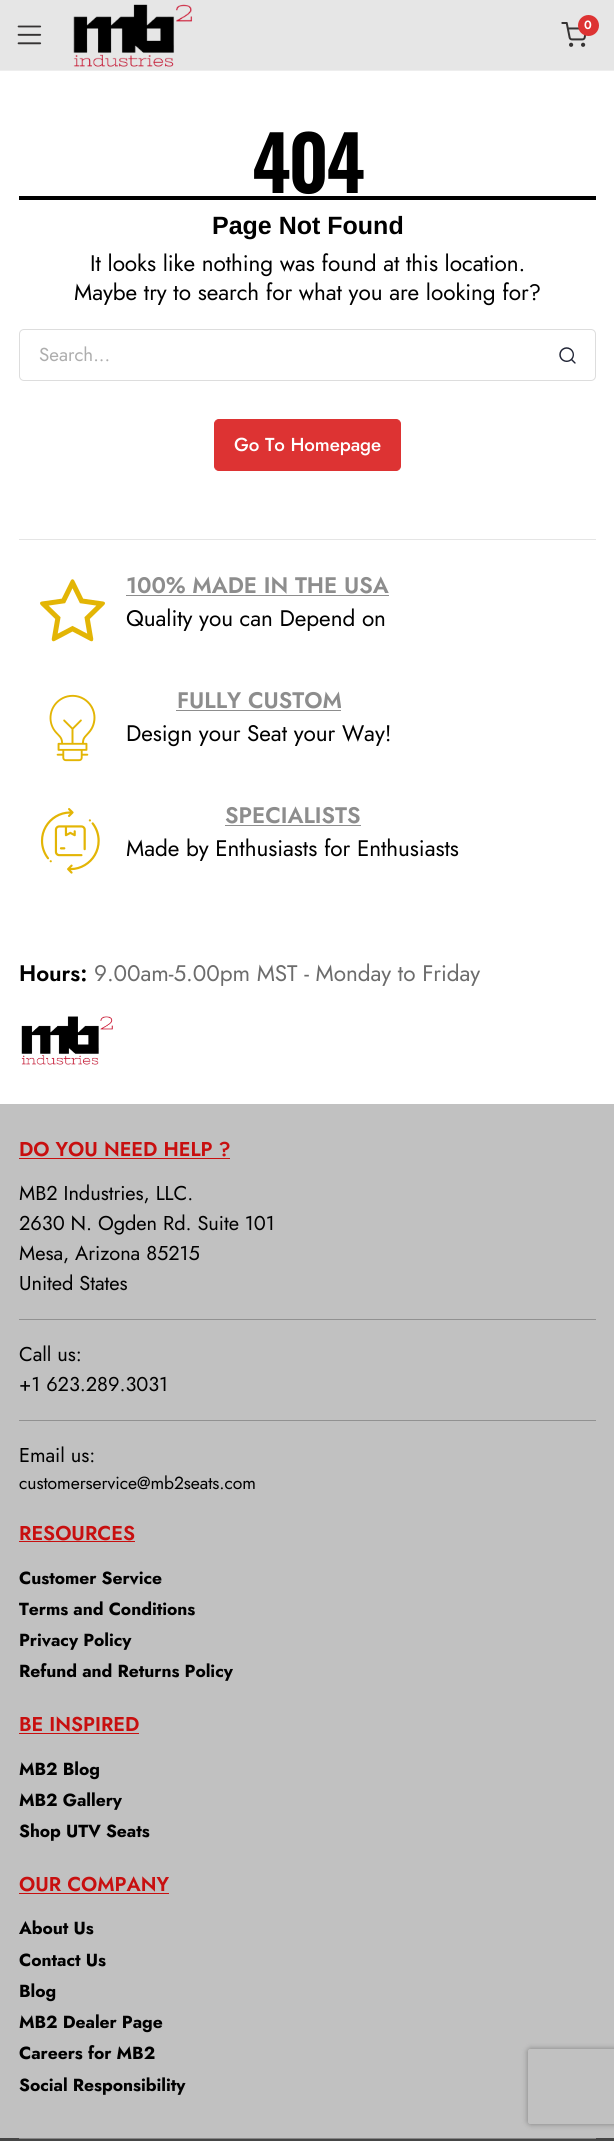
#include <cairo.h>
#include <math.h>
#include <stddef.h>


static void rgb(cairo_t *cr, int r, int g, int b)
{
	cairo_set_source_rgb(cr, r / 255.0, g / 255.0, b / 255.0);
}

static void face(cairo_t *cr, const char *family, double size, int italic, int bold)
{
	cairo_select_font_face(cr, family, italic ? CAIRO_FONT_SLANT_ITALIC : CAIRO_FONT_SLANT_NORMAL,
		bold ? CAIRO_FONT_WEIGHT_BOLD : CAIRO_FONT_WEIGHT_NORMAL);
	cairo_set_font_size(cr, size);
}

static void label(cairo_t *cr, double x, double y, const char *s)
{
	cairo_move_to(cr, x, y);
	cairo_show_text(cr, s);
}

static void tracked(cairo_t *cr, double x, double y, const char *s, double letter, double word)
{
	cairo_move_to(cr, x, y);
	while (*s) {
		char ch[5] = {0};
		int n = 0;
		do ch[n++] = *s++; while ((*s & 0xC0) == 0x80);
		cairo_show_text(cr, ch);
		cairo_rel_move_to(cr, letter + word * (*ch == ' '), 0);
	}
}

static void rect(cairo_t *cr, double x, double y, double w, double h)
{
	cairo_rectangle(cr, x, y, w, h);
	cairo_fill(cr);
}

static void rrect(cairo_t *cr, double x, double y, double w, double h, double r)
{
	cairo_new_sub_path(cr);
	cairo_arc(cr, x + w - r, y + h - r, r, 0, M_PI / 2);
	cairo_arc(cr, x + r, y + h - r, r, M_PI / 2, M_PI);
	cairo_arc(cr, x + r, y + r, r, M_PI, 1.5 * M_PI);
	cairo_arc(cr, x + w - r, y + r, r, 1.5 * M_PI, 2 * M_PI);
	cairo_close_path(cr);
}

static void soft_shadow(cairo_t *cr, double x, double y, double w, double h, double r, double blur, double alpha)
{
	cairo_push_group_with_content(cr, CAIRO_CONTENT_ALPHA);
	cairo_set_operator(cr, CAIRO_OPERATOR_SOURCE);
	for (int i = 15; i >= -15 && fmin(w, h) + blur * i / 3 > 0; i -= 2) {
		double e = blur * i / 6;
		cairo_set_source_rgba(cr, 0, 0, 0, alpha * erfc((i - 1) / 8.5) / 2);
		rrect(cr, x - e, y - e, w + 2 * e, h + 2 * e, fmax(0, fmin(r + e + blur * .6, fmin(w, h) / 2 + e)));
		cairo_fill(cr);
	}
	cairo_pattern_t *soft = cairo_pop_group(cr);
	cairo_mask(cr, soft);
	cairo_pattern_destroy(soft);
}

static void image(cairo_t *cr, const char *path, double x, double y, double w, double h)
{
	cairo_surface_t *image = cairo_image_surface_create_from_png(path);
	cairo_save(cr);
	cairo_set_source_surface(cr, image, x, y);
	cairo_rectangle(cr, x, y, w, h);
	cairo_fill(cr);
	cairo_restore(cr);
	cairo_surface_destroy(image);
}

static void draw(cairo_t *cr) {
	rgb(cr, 255, 255, 255);
	cairo_paint(cr);
	rgb(cr, 230, 230, 230);
	rect(cr, 0, 0, 614, 70);
	rgb(cr, 238, 238, 238);
	rect(cr, 0, 70, 614, 1);
	image(cr, "image0.png", 17, 25, 25, 20);
	image(cr, "image1.png", 73, 4, 120, 63);
	image(cr, "image2.png", 561, 22, 26, 25);
	rgb(cr, 221, 51, 51);
	cairo_arc(cr, 588.5, 25.5, 10.5, 0, 2 * M_PI);
	cairo_fill(cr);
	face(cr, "Jost SemiBold", 12, 0, 0);
	rgb(cr, 255, 255, 255);
	tracked(cr, 584, 29, "0", -0.05, 0);
	rgb(cr, 0, 0, 0);
	rect(cr, 19, 196, 577, 4);
	face(cr, "Oswald SemiBold", 75, 0, 0);
	tracked(cr, 252, 193, "404", -2.5, 0);
	face(cr, "Liberation Sans", 25, 0, 1);
	label(cr, 212, 234, "Page Not Found");
	face(cr, "Jost", 22.5, 0, 0);
	tracked(cr, 90, 271, "It looks like nothing was found at this location.", -0.05, 0);
	tracked(cr, 74, 300, "Maybe try to search for what you are looking for?", -0.05, 0);
	rrect(cr, 19.5, 329.5, 576, 51, 4.5);
	rgb(cr, 221, 221, 221);
	cairo_set_line_width(cr, 1);
	cairo_stroke(cr);
	face(cr, "Jost", 18.75, 0, 0);
	rgb(cr, 173, 173, 173);
	label(cr, 39, 361, "Search...");
	image(cr, "image3.png", 559, 347, 17, 17);
	rgb(cr, 221, 51, 51);
	rrect(cr, 214.5, 419.5, 186, 51, 4.5);
	cairo_fill_preserve(cr);
	cairo_stroke(cr);
	face(cr, "Jost Medium", 18.75, 0, 0);
	rgb(cr, 255, 255, 255);
	tracked(cr, 234, 451, "Go To Homepage", -0.05, 0);
	rgb(cr, 229, 229, 229);
	rect(cr, 19, 539, 577, 1);
	image(cr, "image4.png", 40, 579, 65, 63);
	face(cr, "Jost SemiBold", 22.5, 0, 0);
	rgb(cr, 141, 141, 141);
	label(cr, 126, 593, "100% MADE IN THE USA");
	rect(cr, 126, 595, 263, 1);
	face(cr, "Jost", 22.5, 0, 0);
	rgb(cr, 0, 0, 0);
	tracked(cr, 126, 626, "Quality you can Depend on", -0.05, 0);
	image(cr, "image5.png", 49, 694, 47, 68);
	face(cr, "Jost SemiBold", 22.5, 0, 0);
	rgb(cr, 141, 141, 141);
	label(cr, 177, 708, "FULLY CUSTOM");
	rect(cr, 176, 710, 165, 1);
	face(cr, "Jost", 22.5, 0, 0);
	rgb(cr, 0, 0, 0);
	tracked(cr, 126, 741, "Design your Seat your Way!", -0.05, 0);
	image(cr, "image6.png", 40, 808, 60, 66);
	face(cr, "Jost SemiBold", 22.5, 0, 0);
	rgb(cr, 141, 141, 141);
	label(cr, 225, 823, "SPECIALISTS");
	rect(cr, 225, 825, 136, 1);
	face(cr, "Jost", 22.5, 0, 0);
	rgb(cr, 0, 0, 0);
	tracked(cr, 126, 856, "Made by Enthusiasts for Enthusiasts", -0.05, 0);
	face(cr, "Jost SemiBold", 22.5, 0, 0);
	tracked(cr, 19, 981, "Hours:", -0.05, 0);
	face(cr, "Jost", 22.5, 0, 0);
	rgb(cr, 108, 108, 108);
	tracked(cr, 94, 981, "9.00am-5.00pm MST - Monday to Friday", -0.05, 0);
	image(cr, "image7.png", 21, 1016, 92, 49);
	rgb(cr, 193, 193, 193);
	rect(cr, 0, 1104, 614, 1034);
	face(cr, "Jost SemiBold", 20, 0, 0);
	rgb(cr, 200, 15, 15);
	label(cr, 19, 1156, "DO YOU NEED HELP ?");
	rect(cr, 19, 1158, 211, 1);
	face(cr, "Jost", 20, 0, 0);
	rgb(cr, 0, 0, 0);
	tracked(cr, 19, 1200, "MB2 Industries, LLC.", -0.05, 0);
	tracked(cr, 19, 1230, "2630 N. Ogden Rd. Suite 101", -0.05, 0);
	tracked(cr, 19, 1260, "Mesa, Arizona 85215", -0.05, 0);
	tracked(cr, 19, 1290, "United States", -0.05, 0);
	rgb(cr, 145, 145, 145);
	rect(cr, 19, 1319, 577, 1);
	rgb(cr, 0, 0, 0);
	tracked(cr, 19, 1361, "Call us:", -0.05, 0);
	tracked(cr, 19, 1391, "+1 623.289.3031", -0.05, 0);
	rgb(cr, 145, 145, 145);
	rect(cr, 19, 1420, 577, 1);
	rgb(cr, 0, 0, 0);
	tracked(cr, 19, 1462, "Email us:", -0.05, 0);
	face(cr, "Jost", 17.5, 0, 0);
	tracked(cr, 19, 1489, "customerservice@mb2seats.com", -0.05, 0);
	face(cr, "Jost SemiBold", 20, 0, 0);
	rgb(cr, 200, 15, 15);
	label(cr, 19, 1540, "RESOURCES");
	rect(cr, 19, 1541, 116, 1);
	face(cr, "Jost", 17.5, 0, 1);
	rgb(cr, 0, 0, 0);
	tracked(cr, 19, 1584, "Customer Service", -0.05, 0);
	tracked(cr, 19, 1615, "Terms and Conditions", -0.05, 0);
	tracked(cr, 19, 1646, "Privacy Policy", -0.05, 0);
	tracked(cr, 19, 1677, "Refund and Returns Policy", -0.05, 0);
	face(cr, "Jost SemiBold", 20, 0, 0);
	rgb(cr, 200, 15, 15);
	label(cr, 19, 1731, "BE INSPIRED");
	rect(cr, 19, 1733, 120, 1);
	face(cr, "Jost", 17.5, 0, 1);
	rgb(cr, 0, 0, 0);
	tracked(cr, 19, 1775, "MB2 Blog", -0.05, 0);
	tracked(cr, 19, 1806, "MB2 Gallery", -0.05, 0);
	tracked(cr, 19, 1837, "Shop UTV Seats", -0.05, 0);
	face(cr, "Jost SemiBold", 20, 0, 0);
	rgb(cr, 200, 15, 15);
	label(cr, 19, 1891, "OUR COMPANY");
	rect(cr, 19, 1893, 150, 1);
	face(cr, "Jost", 17.5, 0, 1);
	rgb(cr, 0, 0, 0);
	tracked(cr, 19, 1934, "About Us", -0.05, 0);
	tracked(cr, 19, 1966, "Contact Us", -0.05, 0);
	tracked(cr, 19, 1997, "Blog", -0.05, 0);
	tracked(cr, 19, 2028, "MB2 Dealer Page", -0.05, 0);
	tracked(cr, 19, 2059, "Careers for MB2", -0.05, 0);
	tracked(cr, 19, 2091, "Social Responsibility", -0.05, 0);
	rgb(cr, 70, 70, 70);
	rect(cr, 0, 2138, 614, 3);
	rgb(cr, 134, 134, 134);
	rect(cr, 19, 2138, 577, 1);
	cairo_save(cr);
	cairo_set_fill_rule(cr, CAIRO_FILL_RULE_EVEN_ODD);
	cairo_new_path(cr);
	cairo_move_to(cr, 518, 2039);
	cairo_line_to(cr, 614, 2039);
	cairo_line_to(cr, 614, 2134);
	cairo_line_to(cr, 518, 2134);
	cairo_close_path(cr);
	cairo_move_to(cr, 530.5, 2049);
	cairo_line_to(cr, 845.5, 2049);
	cairo_curve_to(cr, 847, 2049, 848, 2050, 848, 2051.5);
	cairo_line_to(cr, 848, 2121.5);
	cairo_curve_to(cr, 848, 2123, 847, 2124, 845.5, 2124);
	cairo_line_to(cr, 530.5, 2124);
	cairo_curve_to(cr, 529, 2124, 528, 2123, 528, 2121.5);
	cairo_line_to(cr, 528, 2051.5);
	cairo_curve_to(cr, 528, 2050, 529, 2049, 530.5, 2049);
	cairo_close_path(cr);
	cairo_clip(cr);
	rgb(cr, 128, 128, 128);
	soft_shadow(cr, 528, 2049, 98, 75, 2.5, 3, 1);
	cairo_restore(cr);
}

int main(void) {
	cairo_surface_t *surface = cairo_image_surface_create(CAIRO_FORMAT_RGB24, 614, 2141);
	cairo_t *cr = cairo_create(surface);
	cairo_font_options_t *options = cairo_font_options_create();
	cairo_font_options_set_hint_metrics(options, CAIRO_HINT_METRICS_OFF);
	cairo_font_options_set_hint_style(options, CAIRO_HINT_STYLE_NONE);
	cairo_set_font_options(cr, options);
	cairo_set_miter_limit(cr, 4);
	draw(cr);
	cairo_surface_write_to_png(surface, "render.png");
	cairo_font_options_destroy(options);
	cairo_destroy(cr);
	cairo_surface_destroy(surface);
	return 0;
}
